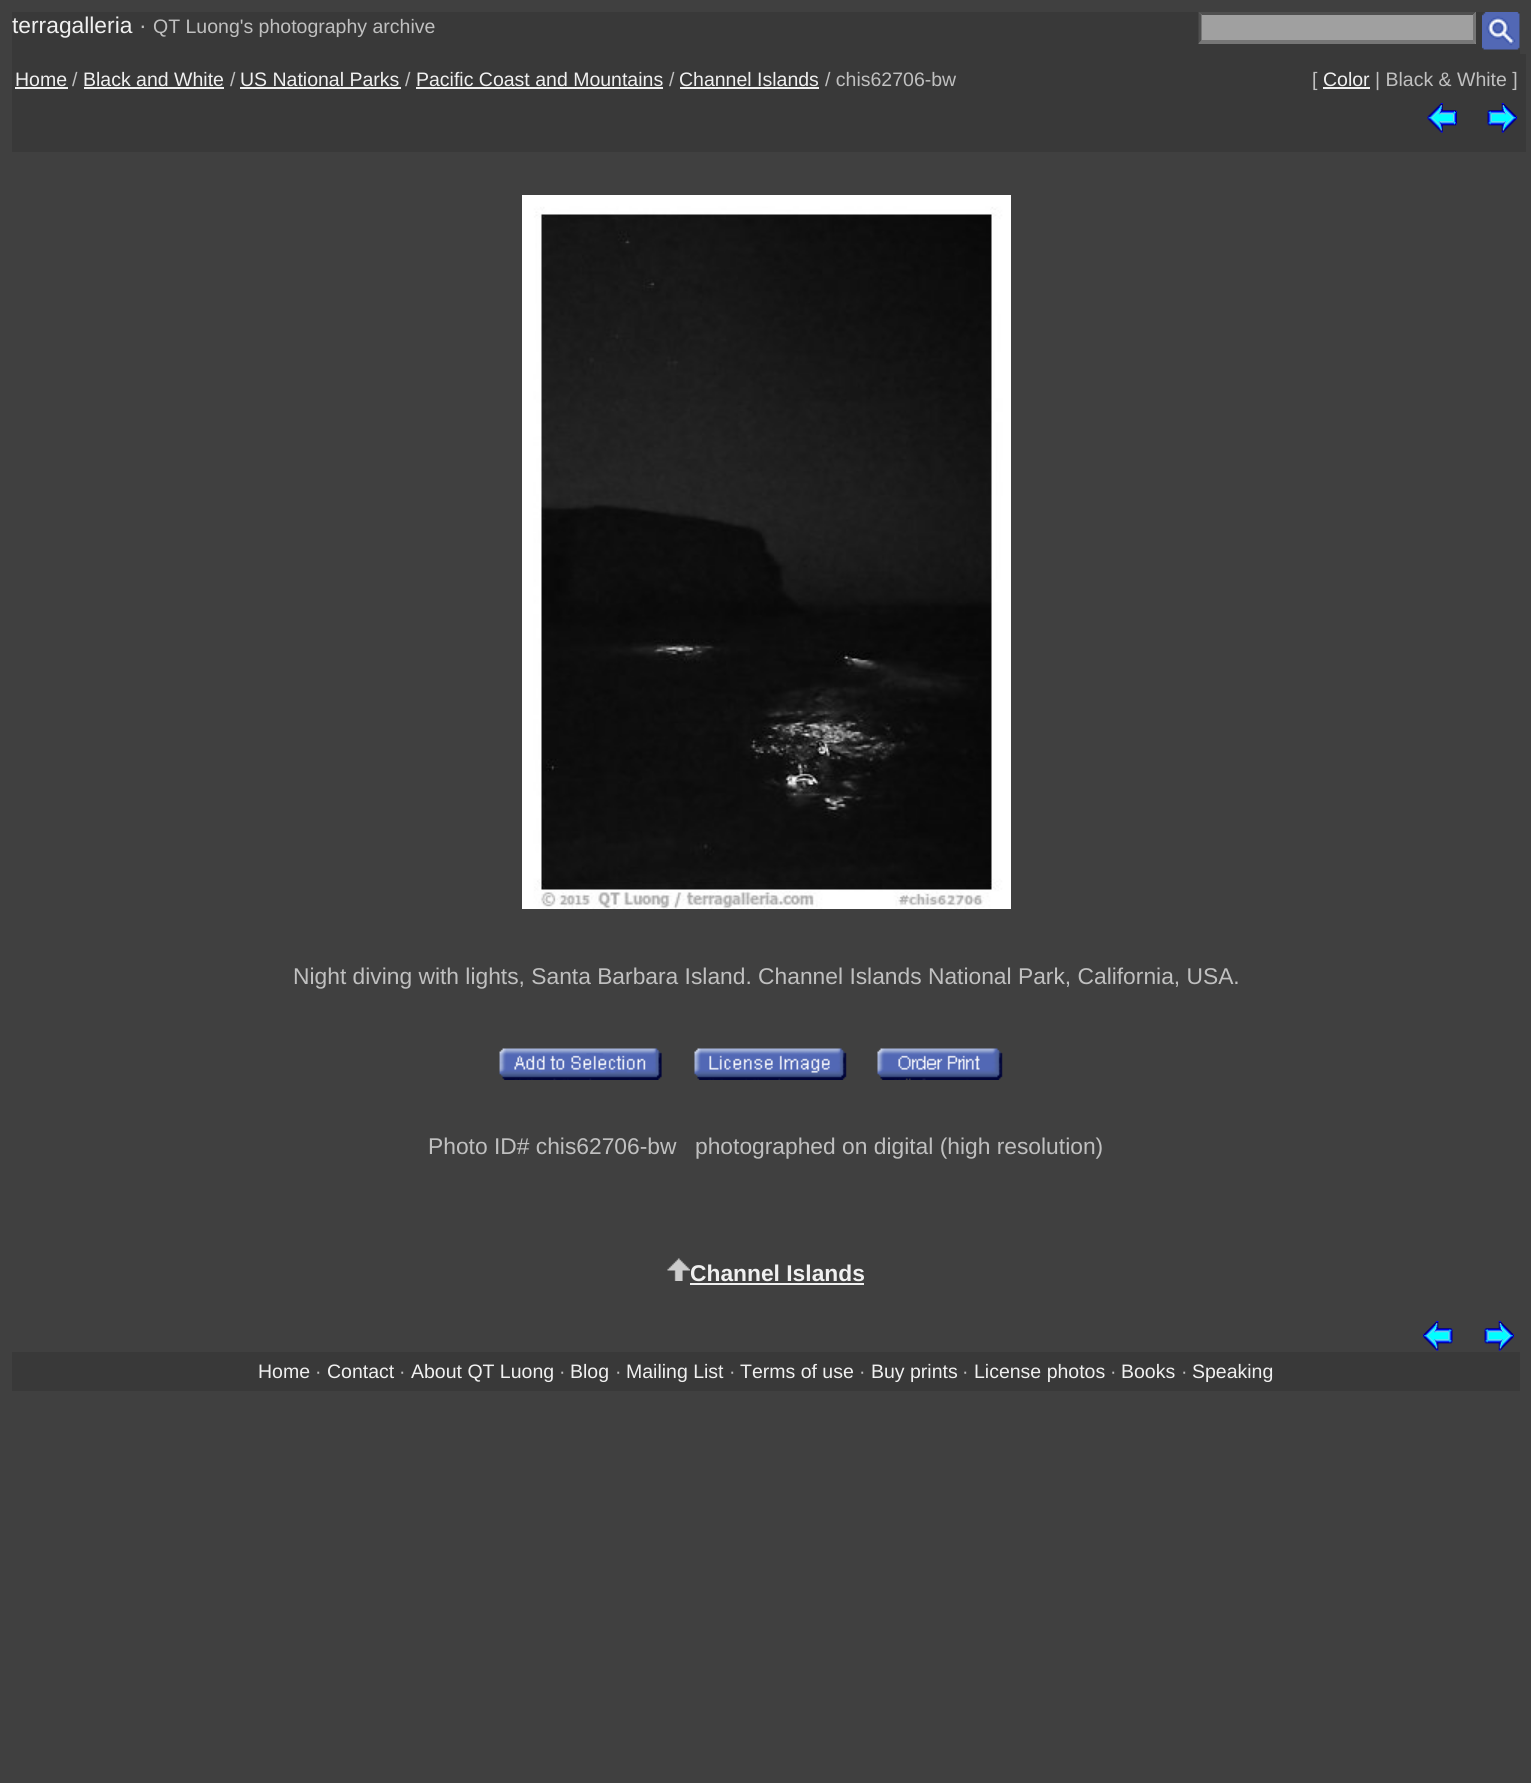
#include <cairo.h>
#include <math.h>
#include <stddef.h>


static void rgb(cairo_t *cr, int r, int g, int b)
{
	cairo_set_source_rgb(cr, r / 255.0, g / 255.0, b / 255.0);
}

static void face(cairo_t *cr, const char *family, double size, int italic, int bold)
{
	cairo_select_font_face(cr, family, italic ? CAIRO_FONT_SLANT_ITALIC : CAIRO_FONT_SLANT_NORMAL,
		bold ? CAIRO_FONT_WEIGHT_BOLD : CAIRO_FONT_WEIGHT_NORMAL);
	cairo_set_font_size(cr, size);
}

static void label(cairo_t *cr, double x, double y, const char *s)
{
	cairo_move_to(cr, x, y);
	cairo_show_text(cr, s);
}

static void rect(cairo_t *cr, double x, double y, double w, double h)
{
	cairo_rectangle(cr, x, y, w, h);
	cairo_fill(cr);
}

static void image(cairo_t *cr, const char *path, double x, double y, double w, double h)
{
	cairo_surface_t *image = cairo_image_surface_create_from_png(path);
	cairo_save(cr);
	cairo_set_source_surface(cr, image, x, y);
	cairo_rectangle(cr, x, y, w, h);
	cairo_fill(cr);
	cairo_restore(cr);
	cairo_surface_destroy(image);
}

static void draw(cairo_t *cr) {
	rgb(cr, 64, 64, 64);
	cairo_paint(cr);
	rgb(cr, 57, 57, 57);
	rect(cr, 12, 12, 1508, 42);
	face(cr, "Liberation Sans", 22.8, 0, 0);
	rgb(cr, 240, 240, 240);
	label(cr, 12, 33, "terragalleria");
	rgb(cr, 192, 192, 192);
	label(cr, 139, 33, "·");
	face(cr, "Liberation Sans", 19.5, 0, 0);
	label(cr, 153, 33, "QT Luong's photography archive");
	rgb(cr, 160, 160, 160);
	rect(cr, 1199, 12, 277, 32);
	rgb(cr, 79, 79, 79);
	cairo_new_path(cr);
	cairo_move_to(cr, 1198, 12);
	cairo_line_to(cr, 1476, 12);
	cairo_line_to(cr, 1473, 15);
	cairo_line_to(cr, 1202, 15);
	cairo_close_path(cr);
	cairo_fill(cr);
	rgb(cr, 118, 118, 118);
	cairo_new_path(cr);
	cairo_move_to(cr, 1476, 12);
	cairo_line_to(cr, 1476, 43.5);
	cairo_line_to(cr, 1473, 40.5);
	cairo_line_to(cr, 1473, 15);
	cairo_close_path(cr);
	cairo_fill(cr);
	cairo_new_path(cr);
	cairo_move_to(cr, 1476, 44);
	cairo_line_to(cr, 1198, 44);
	cairo_line_to(cr, 1202, 40);
	cairo_line_to(cr, 1473, 40);
	cairo_close_path(cr);
	cairo_fill(cr);
	rgb(cr, 79, 79, 79);
	cairo_new_path(cr);
	cairo_move_to(cr, 1198.5, 43.5);
	cairo_line_to(cr, 1198.5, 12);
	cairo_line_to(cr, 1201.5, 15);
	cairo_line_to(cr, 1201.5, 40.5);
	cairo_close_path(cr);
	cairo_fill(cr);
	image(cr, "image0.png", 1482, 12, 38, 38);
	rgb(cr, 57, 57, 57);
	rect(cr, 12, 54, 1514, 98);
	rgb(cr, 240, 240, 240);
	label(cr, 15, 86, "Home");
	rect(cr, 15, 87, 53, 2);
	rgb(cr, 192, 192, 192);
	label(cr, 72, 86, "/");
	rgb(cr, 240, 240, 240);
	label(cr, 83, 86, "Black and White");
	rect(cr, 84, 87, 140, 2);
	rgb(cr, 192, 192, 192);
	label(cr, 230, 86, "/");
	rgb(cr, 240, 240, 240);
	label(cr, 240, 86, "US National Parks");
	rect(cr, 240, 87, 161, 2);
	rgb(cr, 192, 192, 192);
	label(cr, 405, 86, "/");
	rgb(cr, 240, 240, 240);
	label(cr, 416, 86, "Pacific Coast and Mountains");
	rect(cr, 416, 87, 247, 2);
	rgb(cr, 192, 192, 192);
	label(cr, 669, 86, "/");
	rgb(cr, 240, 240, 240);
	label(cr, 679, 86, "Channel Islands");
	rect(cr, 680, 87, 139, 2);
	rgb(cr, 192, 192, 192);
	label(cr, 825, 86, "/ chis62706-bw");
	label(cr, 1312, 86, "[");
	rgb(cr, 240, 240, 240);
	label(cr, 1323, 86, "Color");
	rect(cr, 1323, 87, 47, 2);
	rgb(cr, 192, 192, 192);
	label(cr, 1375, 86, "| Black & White ]");
	image(cr, "image1.png", 1427, 103, 30, 30);
	image(cr, "image2.png", 1487, 103, 30, 30);
	image(cr, "image3.png", 522, 195, 489, 714);
	face(cr, "Liberation Sans", 22.8, 0, 0);
	label(cr, 293, 984, "Night diving with lights, Santa Barbara Island. Channel Islands National Park, California, USA.");
	image(cr, "image4.png", 499, 1048, 163, 32);
	image(cr, "image5.png", 694, 1048, 153, 32);
	image(cr, "image6.png", 877, 1048, 126, 32);
	label(cr, 428, 1154, "Photo ID# chis62706-bw");
	label(cr, 695, 1154, "photographed on digital (high resolution)");
	image(cr, "image7.png", 667, 1258, 23, 23);
	face(cr, "Liberation Sans", 22.8, 0, 1);
	rgb(cr, 240, 240, 240);
	label(cr, 690, 1281, "Channel Islands");
	rect(cr, 690, 1283, 174, 2);
	image(cr, "image8.png", 1423, 1321, 30, 30);
	image(cr, "image9.png", 1484, 1321, 30, 30);
	rgb(cr, 57, 57, 57);
	rect(cr, 12, 1352, 1508, 39);
	face(cr, "Liberation Sans", 19.5, 0, 0);
	rgb(cr, 240, 240, 240);
	label(cr, 258, 1378, "Home");
	rgb(cr, 192, 192, 192);
	label(cr, 315, 1378, "·");
	rgb(cr, 240, 240, 240);
	label(cr, 327, 1378, "Contact");
	rgb(cr, 192, 192, 192);
	label(cr, 399, 1378, "·");
	rgb(cr, 240, 240, 240);
	label(cr, 411, 1378, "About QT Luong");
	rgb(cr, 192, 192, 192);
	label(cr, 559, 1378, "·");
	rgb(cr, 240, 240, 240);
	label(cr, 570, 1378, "Blog");
	rgb(cr, 192, 192, 192);
	label(cr, 615, 1378, "·");
	rgb(cr, 240, 240, 240);
	label(cr, 626, 1378, "Mailing List");
	rgb(cr, 192, 192, 192);
	label(cr, 729, 1378, "·");
	rgb(cr, 240, 240, 240);
	label(cr, 740, 1378, "Terms of use");
	rgb(cr, 192, 192, 192);
	label(cr, 859, 1378, "·");
	rgb(cr, 240, 240, 240);
	label(cr, 871, 1378, "Buy prints");
	rgb(cr, 192, 192, 192);
	label(cr, 962, 1378, "·");
	rgb(cr, 240, 240, 240);
	label(cr, 974, 1378, "License photos");
	rgb(cr, 192, 192, 192);
	label(cr, 1110, 1378, "·");
	rgb(cr, 240, 240, 240);
	label(cr, 1121, 1378, "Books");
	rgb(cr, 192, 192, 192);
	label(cr, 1181, 1378, "·");
	rgb(cr, 240, 240, 240);
	label(cr, 1192, 1378, "Speaking");
}

int main(void) {
	cairo_surface_t *surface = cairo_image_surface_create(CAIRO_FORMAT_RGB24, 1531, 1783);
	cairo_t *cr = cairo_create(surface);
	cairo_font_options_t *options = cairo_font_options_create();
	cairo_font_options_set_hint_metrics(options, CAIRO_HINT_METRICS_OFF);
	cairo_font_options_set_hint_style(options, CAIRO_HINT_STYLE_NONE);
	cairo_set_font_options(cr, options);
	cairo_set_miter_limit(cr, 4);
	draw(cr);
	cairo_surface_write_to_png(surface, "render.png");
	cairo_font_options_destroy(options);
	cairo_destroy(cr);
	cairo_surface_destroy(surface);
	return 0;
}
